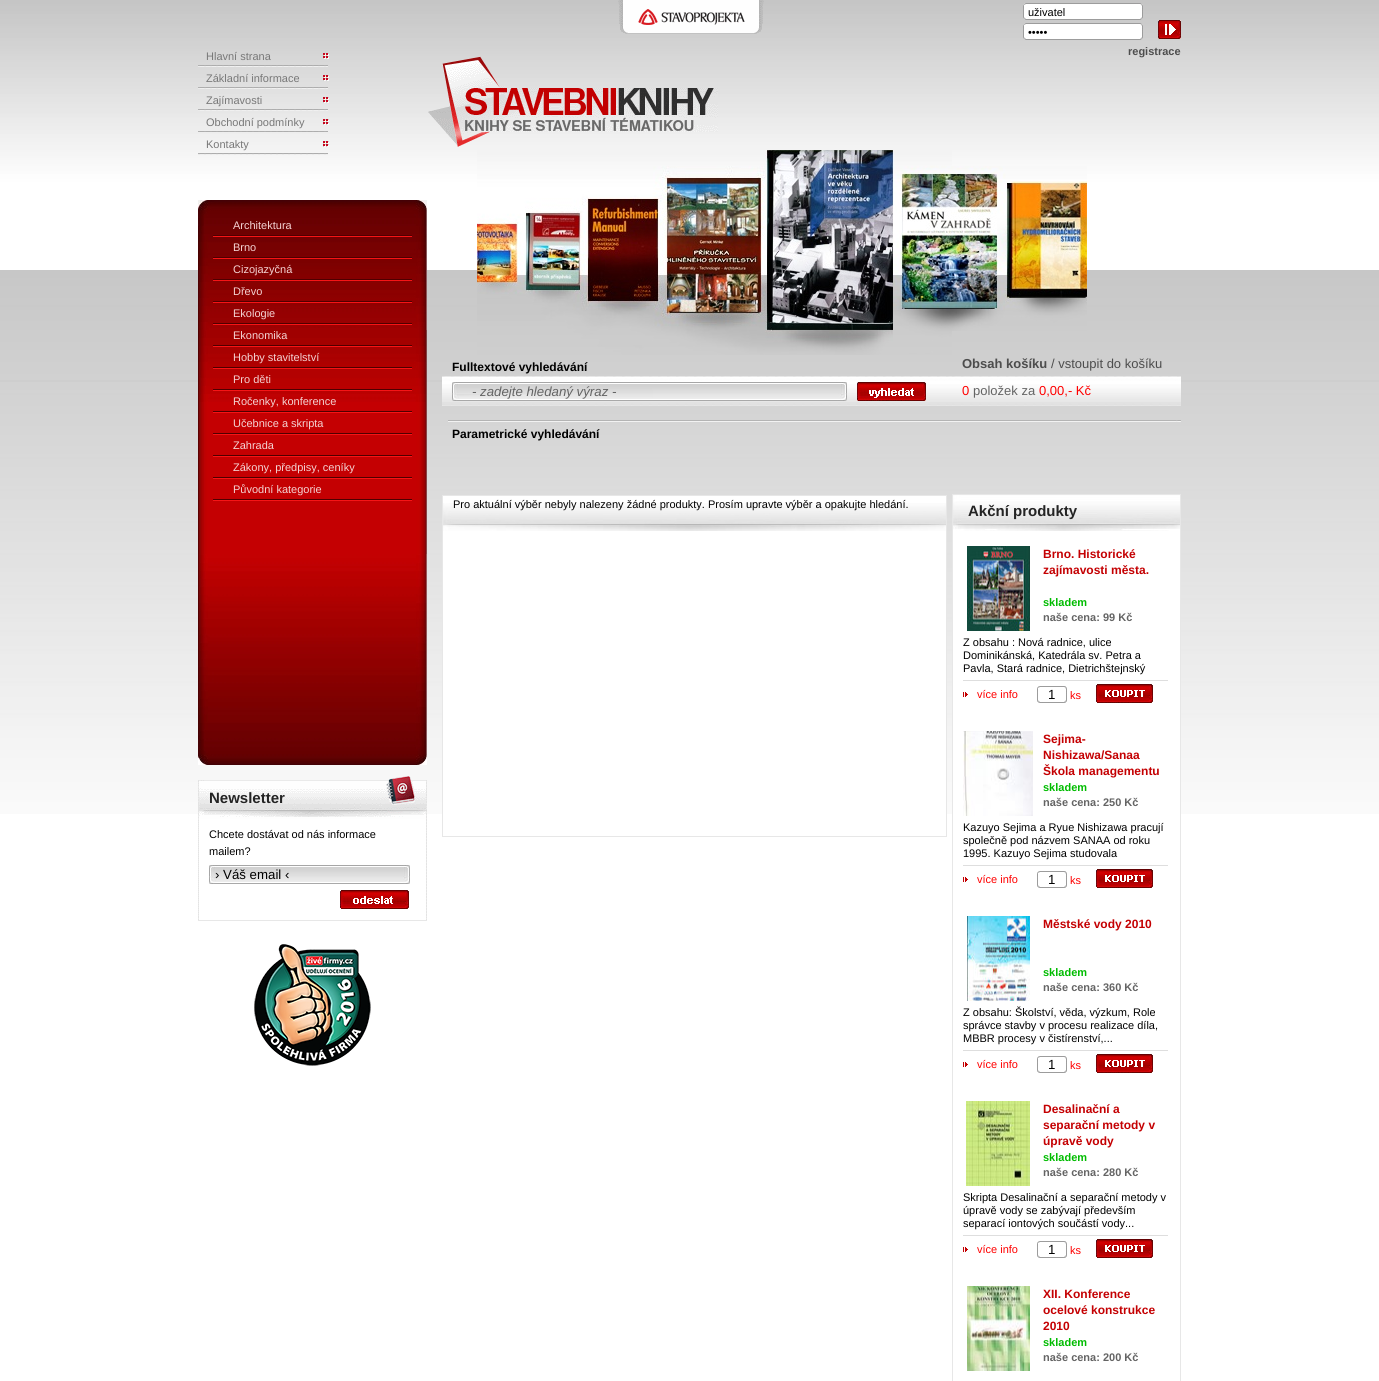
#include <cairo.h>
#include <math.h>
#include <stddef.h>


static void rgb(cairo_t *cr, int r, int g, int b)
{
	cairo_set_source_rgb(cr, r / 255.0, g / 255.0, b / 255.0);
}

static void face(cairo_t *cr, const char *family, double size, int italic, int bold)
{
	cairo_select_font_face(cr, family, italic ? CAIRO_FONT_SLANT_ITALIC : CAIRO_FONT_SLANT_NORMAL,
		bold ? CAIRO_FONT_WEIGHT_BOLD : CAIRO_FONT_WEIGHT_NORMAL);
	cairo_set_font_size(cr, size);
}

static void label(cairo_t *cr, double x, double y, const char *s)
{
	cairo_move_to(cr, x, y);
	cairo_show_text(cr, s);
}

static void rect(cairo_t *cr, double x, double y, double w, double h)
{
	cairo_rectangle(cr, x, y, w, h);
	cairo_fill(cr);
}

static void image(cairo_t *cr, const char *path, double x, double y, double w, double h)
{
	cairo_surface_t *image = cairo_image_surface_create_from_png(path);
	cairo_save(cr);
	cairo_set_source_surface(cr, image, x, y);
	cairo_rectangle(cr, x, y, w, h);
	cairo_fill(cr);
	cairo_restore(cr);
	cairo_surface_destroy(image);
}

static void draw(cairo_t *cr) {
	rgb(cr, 255, 255, 255);
	cairo_paint(cr);
	image(cr, "image0.png", 0, 0, 1379, 814);
	image(cr, "image1.png", 448, 420, 733, 2);
	image(cr, "image2.png", 198, 65, 130, 2);
	image(cr, "image3.png", 323, 53, 6, 6);
	face(cr, "Liberation Sans", 11, 0, 0);
	rgb(cr, 120, 120, 120);
	label(cr, 206, 60, "Hlavní strana");
	image(cr, "image2.png", 198, 87, 130, 2);
	image(cr, "image3.png", 323, 75, 6, 6);
	label(cr, 206, 82, "Základní informace");
	image(cr, "image2.png", 198, 109, 130, 2);
	image(cr, "image3.png", 323, 97, 6, 6);
	label(cr, 206, 104, "Zajímavosti");
	image(cr, "image4.png", 198, 131, 130, 1);
	image(cr, "image3.png", 323, 119, 6, 6);
	label(cr, 206, 126, "Obchodní podmínky");
	image(cr, "image2.png", 198, 153, 130, 2);
	image(cr, "image3.png", 323, 141, 6, 6);
	label(cr, 206, 148, "Kontakty");
	image(cr, "image5.png", 198, 402, 229, 152);
	image(cr, "image6.png", 198, 554, 229, 211);
	image(cr, "image7.png", 198, 200, 229, 202);
	image(cr, "image8.png", 213, 235, 199, 2);
	rgb(cr, 244, 211, 211);
	label(cr, 233, 229, "Architektura");
	image(cr, "image8.png", 213, 257, 199, 2);
	label(cr, 233, 251, "Brno");
	image(cr, "image8.png", 213, 279, 199, 2);
	label(cr, 233, 273, "Cizojazyčná");
	image(cr, "image8.png", 213, 301, 199, 2);
	label(cr, 233, 295, "Dřevo");
	image(cr, "image8.png", 213, 323, 199, 2);
	label(cr, 233, 317, "Ekologie");
	image(cr, "image8.png", 213, 345, 199, 2);
	label(cr, 233, 339, "Ekonomika");
	image(cr, "image8.png", 213, 367, 199, 2);
	label(cr, 233, 361, "Hobby stavitelství");
	image(cr, "image8.png", 213, 389, 199, 2);
	label(cr, 233, 383, "Pro děti");
	image(cr, "image8.png", 213, 411, 199, 2);
	label(cr, 233, 405, "Ročenky, konference");
	image(cr, "image8.png", 213, 433, 199, 2);
	label(cr, 233, 427, "Učebnice a skripta");
	image(cr, "image8.png", 213, 455, 199, 2);
	label(cr, 233, 449, "Zahrada");
	image(cr, "image8.png", 213, 477, 199, 2);
	label(cr, 233, 471, "Zákony, předpisy, ceníky");
	image(cr, "image8.png", 213, 499, 199, 2);
	label(cr, 233, 493, "Původní kategorie");
	image(cr, "image9.png", 198, 776, 229, 144);
	rgb(cr, 231, 231, 231);
	rect(cr, 198, 920, 229, 1);
	face(cr, "Liberation Sans", 15, 0, 1);
	rgb(cr, 36, 36, 36);
	label(cr, 209, 803, "Newsletter");
	face(cr, "Liberation Sans", 11, 0, 0);
	rgb(cr, 0, 0, 0);
	label(cr, 209, 838, "Chcete dostávat od nás informace");
	label(cr, 209, 855, "mailem?");
	image(cr, "image10.png", 209, 865, 201, 19);
	face(cr, "Liberation Sans", 13.25, 0, 0);
	label(cr, 215, 879, "› Váš email ‹");
	image(cr, "image11.png", 340, 890, 69, 19);
	image(cr, "image12.png", 254, 944, 117, 122);
	image(cr, "image13.png", 477, 150, 475, 205);
	image(cr, "image14.png", 618, 0, 146, 34);
	image(cr, "image15.png", 428, 56, 290, 91);
	image(cr, "image16.png", 1023, 3, 120, 17);
	face(cr, "Liberation Sans", 11, 0, 0);
	label(cr, 1028, 16, "uživatel");
	image(cr, "image17.png", 1023, 23, 120, 17);
	label(cr, 1028, 36, "•••••");
	image(cr, "image18.png", 1158, 20, 23, 19);
	face(cr, "Liberation Sans", 11, 0, 1);
	rgb(cr, 77, 77, 77);
	label(cr, 1128, 55, "registrace");
	image(cr, "image19.png", 442, 376, 510, 30);
	face(cr, "Liberation Sans", 12, 0, 1);
	rgb(cr, 0, 0, 0);
	label(cr, 452, 371, "Fulltextové vyhledávání");
	image(cr, "image20.png", 452, 382, 395, 19);
	face(cr, "Liberation Sans", 13.25, 1, 0);
	rgb(cr, 100, 100, 100);
	label(cr, 472, 396, "- zadejte hledaný výraz -");
	image(cr, "image21.png", 857, 382, 69, 19);
	face(cr, "Liberation Sans", 13, 0, 1);
	rgb(cr, 77, 77, 77);
	label(cr, 962, 368, "Obsah košíku");
	face(cr, "Liberation Sans", 13, 0, 0);
	label(cr, 1051, 368, "/ vstoupit do košíku");
	image(cr, "image22.png", 952, 376, 229, 30);
	rgb(cr, 255, 0, 0);
	label(cr, 962, 395, "0");
	rgb(cr, 100, 100, 100);
	label(cr, 973, 395, "položek za");
	rgb(cr, 255, 0, 0);
	label(cr, 1039, 395, "0,00,- Kč");
	face(cr, "Liberation Sans", 12, 0, 1);
	rgb(cr, 0, 0, 0);
	label(cr, 452, 438, "Parametrické vyhledávání");
	rgb(cr, 255, 255, 255);
	rect(cr, 443, 496, 503, 318);
	image(cr, "image23.png", 443, 503, 503, 28);
	cairo_rectangle(cr, 442.5, 495.5, 504, 341);
	rgb(cr, 231, 231, 231);
	cairo_set_line_width(cr, 1);
	cairo_stroke(cr);
	face(cr, "Liberation Sans", 11, 0, 0);
	rgb(cr, 0, 0, 0);
	label(cr, 453, 508, "Pro aktuální výběr nebyly nalezeny žádné produkty. Prosím upravte výběr a opakujte hledání.");
	image(cr, "image24.png", 952, 166, 135, 165);
	rgb(cr, 255, 255, 255);
	rect(cr, 953, 531, 227, 283);
	image(cr, "image25.png", 953, 495, 227, 36);
	cairo_rectangle(cr, 952.5, 494.5, 228, 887);
	rgb(cr, 231, 231, 231);
	cairo_stroke(cr);
	face(cr, "Liberation Sans", 15, 0, 1);
	rgb(cr, 36, 36, 36);
	label(cr, 968, 516, "Akční produkty");
	image(cr, "image26.png", 967, 546, 63, 85);
	face(cr, "Liberation Sans", 12, 0, 1);
	rgb(cr, 196, 0, 2);
	label(cr, 1043, 558, "Brno. Historické");
	label(cr, 1043, 574, "zajímavosti města.");
	face(cr, "Liberation Sans", 11, 0, 1);
	rgb(cr, 0, 188, 0);
	label(cr, 1043, 606, "skladem");
	rgb(cr, 100, 100, 100);
	label(cr, 1043, 621, "naše cena: 99 Kč");
	rgb(cr, 222, 222, 222);
	rect(cr, 963, 680, 205, 1);
	face(cr, "Liberation Sans", 11, 0, 0);
	rgb(cr, 0, 0, 0);
	label(cr, 963, 646, "Z obsahu : Nová radnice, ulice");
	label(cr, 963, 659, "Dominikánská, Katedrála sv. Petra a");
	label(cr, 963, 672, "Pavla, Stará radnice, Dietrichštejnský");
	image(cr, "image27.png", 963, 692, 5, 5);
	rgb(cr, 255, 0, 0);
	label(cr, 977, 698, "více info");
	image(cr, "image28.png", 1037, 686, 30, 17);
	face(cr, "Liberation Sans", 13.25, 0, 0);
	rgb(cr, 0, 0, 0);
	label(cr, 1048, 699, "1");
	face(cr, "Liberation Sans", 11, 0, 0);
	rgb(cr, 255, 0, 0);
	label(cr, 1070, 699, "ks");
	image(cr, "image29.png", 1096, 684, 57, 19);
	image(cr, "image30.png", 963, 731, 70, 85);
	face(cr, "Liberation Sans", 12, 0, 1);
	rgb(cr, 196, 0, 2);
	label(cr, 1043, 743, "Sejima-");
	label(cr, 1043, 759, "Nishizawa/Sanaa");
	label(cr, 1043, 775, "Škola managementu");
	face(cr, "Liberation Sans", 11, 0, 1);
	rgb(cr, 0, 188, 0);
	label(cr, 1043, 791, "skladem");
	rgb(cr, 100, 100, 100);
	label(cr, 1043, 806, "naše cena: 250 Kč");
	rgb(cr, 222, 222, 222);
	rect(cr, 963, 865, 205, 1);
	face(cr, "Liberation Sans", 11, 0, 0);
	rgb(cr, 0, 0, 0);
	label(cr, 963, 831, "Kazuyo Sejima a Ryue Nishizawa pracují");
	label(cr, 963, 844, "společně pod názvem SANAA od roku");
	label(cr, 963, 857, "1995. Kazuyo Sejima studovala");
	image(cr, "image27.png", 963, 877, 5, 5);
	rgb(cr, 255, 0, 0);
	label(cr, 977, 883, "více info");
	image(cr, "image28.png", 1037, 871, 30, 17);
	face(cr, "Liberation Sans", 13.25, 0, 0);
	rgb(cr, 0, 0, 0);
	label(cr, 1048, 884, "1");
	face(cr, "Liberation Sans", 11, 0, 0);
	rgb(cr, 255, 0, 0);
	label(cr, 1070, 884, "ks");
	image(cr, "image29.png", 1096, 869, 57, 19);
	image(cr, "image31.png", 967, 916, 63, 85);
	face(cr, "Liberation Sans", 12, 0, 1);
	rgb(cr, 196, 0, 2);
	label(cr, 1043, 928, "Městské vody 2010");
	face(cr, "Liberation Sans", 11, 0, 1);
	rgb(cr, 0, 188, 0);
	label(cr, 1043, 976, "skladem");
	rgb(cr, 100, 100, 100);
	label(cr, 1043, 991, "naše cena: 360 Kč");
	rgb(cr, 222, 222, 222);
	rect(cr, 963, 1050, 205, 1);
	face(cr, "Liberation Sans", 11, 0, 0);
	rgb(cr, 0, 0, 0);
	label(cr, 963, 1016, "Z obsahu: Školství, věda, výzkum, Role");
	label(cr, 963, 1029, "správce stavby v procesu realizace díla,");
	label(cr, 963, 1042, "MBBR procesy v čistírenství,...");
	image(cr, "image27.png", 963, 1062, 5, 5);
	rgb(cr, 255, 0, 0);
	label(cr, 977, 1068, "více info");
	image(cr, "image28.png", 1037, 1056, 30, 17);
	face(cr, "Liberation Sans", 13.25, 0, 0);
	rgb(cr, 0, 0, 0);
	label(cr, 1048, 1069, "1");
	face(cr, "Liberation Sans", 11, 0, 0);
	rgb(cr, 255, 0, 0);
	label(cr, 1070, 1069, "ks");
	image(cr, "image29.png", 1096, 1054, 57, 19);
	image(cr, "image32.png", 966, 1101, 64, 85);
	face(cr, "Liberation Sans", 12, 0, 1);
	rgb(cr, 196, 0, 2);
	label(cr, 1043, 1113, "Desalinační a");
	label(cr, 1043, 1129, "separační metody v");
	label(cr, 1043, 1145, "úpravě vody");
	face(cr, "Liberation Sans", 11, 0, 1);
	rgb(cr, 0, 188, 0);
	label(cr, 1043, 1161, "skladem");
	rgb(cr, 100, 100, 100);
	label(cr, 1043, 1176, "naše cena: 280 Kč");
	rgb(cr, 222, 222, 222);
	rect(cr, 963, 1235, 205, 1);
	face(cr, "Liberation Sans", 11, 0, 0);
	rgb(cr, 0, 0, 0);
	label(cr, 963, 1201, "Skripta Desalinační a separační metody v");
	label(cr, 963, 1214, "úpravě vody se zabývají především");
	label(cr, 963, 1227, "separací iontových součástí vody...");
	image(cr, "image27.png", 963, 1247, 5, 5);
	rgb(cr, 255, 0, 0);
	label(cr, 977, 1253, "více info");
	image(cr, "image28.png", 1037, 1241, 30, 17);
	face(cr, "Liberation Sans", 13.25, 0, 0);
	rgb(cr, 0, 0, 0);
	label(cr, 1048, 1254, "1");
	face(cr, "Liberation Sans", 11, 0, 0);
	rgb(cr, 255, 0, 0);
	label(cr, 1070, 1254, "ks");
	image(cr, "image29.png", 1096, 1239, 57, 19);
	image(cr, "image33.png", 967, 1286, 63, 85);
	face(cr, "Liberation Sans", 12, 0, 1);
	rgb(cr, 196, 0, 2);
	label(cr, 1043, 1298, "XII. Konference");
	label(cr, 1043, 1314, "ocelové konstrukce");
	label(cr, 1043, 1330, "2010");
	face(cr, "Liberation Sans", 11, 0, 1);
	rgb(cr, 0, 188, 0);
	label(cr, 1043, 1346, "skladem");
	rgb(cr, 100, 100, 100);
	label(cr, 1043, 1361, "naše cena: 200 Kč");
}

int main(void) {
	cairo_surface_t *surface = cairo_image_surface_create(CAIRO_FORMAT_RGB24, 1379, 1381);
	cairo_t *cr = cairo_create(surface);
	cairo_font_options_t *options = cairo_font_options_create();
	cairo_font_options_set_hint_metrics(options, CAIRO_HINT_METRICS_OFF);
	cairo_font_options_set_hint_style(options, CAIRO_HINT_STYLE_NONE);
	cairo_set_font_options(cr, options);
	cairo_set_miter_limit(cr, 4);
	draw(cr);
	cairo_surface_write_to_png(surface, "render.png");
	cairo_font_options_destroy(options);
	cairo_destroy(cr);
	cairo_surface_destroy(surface);
	return 0;
}
